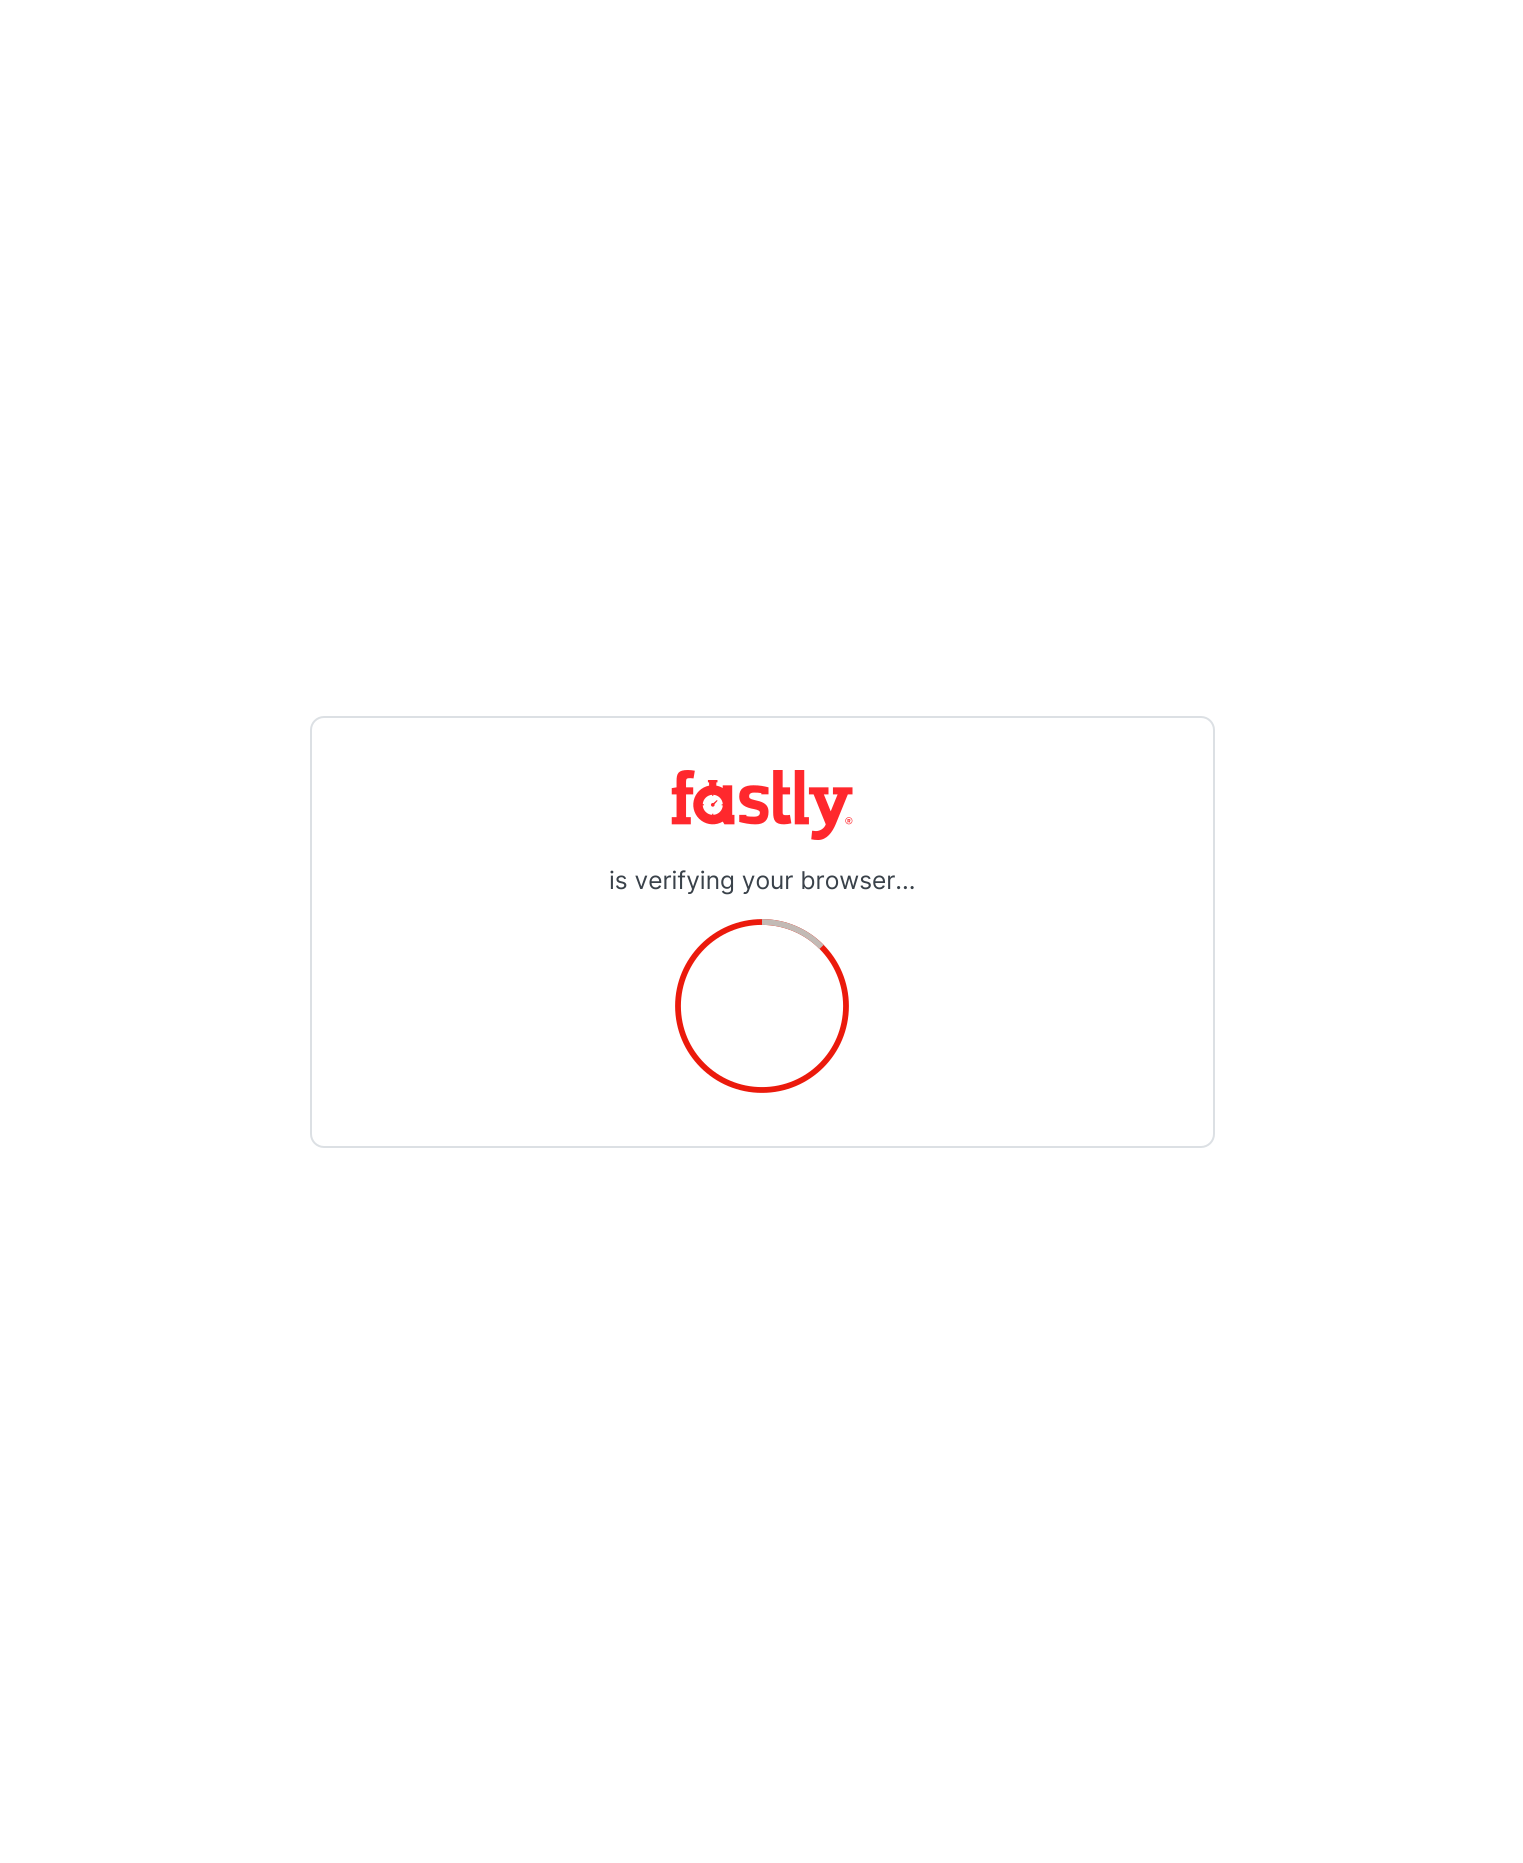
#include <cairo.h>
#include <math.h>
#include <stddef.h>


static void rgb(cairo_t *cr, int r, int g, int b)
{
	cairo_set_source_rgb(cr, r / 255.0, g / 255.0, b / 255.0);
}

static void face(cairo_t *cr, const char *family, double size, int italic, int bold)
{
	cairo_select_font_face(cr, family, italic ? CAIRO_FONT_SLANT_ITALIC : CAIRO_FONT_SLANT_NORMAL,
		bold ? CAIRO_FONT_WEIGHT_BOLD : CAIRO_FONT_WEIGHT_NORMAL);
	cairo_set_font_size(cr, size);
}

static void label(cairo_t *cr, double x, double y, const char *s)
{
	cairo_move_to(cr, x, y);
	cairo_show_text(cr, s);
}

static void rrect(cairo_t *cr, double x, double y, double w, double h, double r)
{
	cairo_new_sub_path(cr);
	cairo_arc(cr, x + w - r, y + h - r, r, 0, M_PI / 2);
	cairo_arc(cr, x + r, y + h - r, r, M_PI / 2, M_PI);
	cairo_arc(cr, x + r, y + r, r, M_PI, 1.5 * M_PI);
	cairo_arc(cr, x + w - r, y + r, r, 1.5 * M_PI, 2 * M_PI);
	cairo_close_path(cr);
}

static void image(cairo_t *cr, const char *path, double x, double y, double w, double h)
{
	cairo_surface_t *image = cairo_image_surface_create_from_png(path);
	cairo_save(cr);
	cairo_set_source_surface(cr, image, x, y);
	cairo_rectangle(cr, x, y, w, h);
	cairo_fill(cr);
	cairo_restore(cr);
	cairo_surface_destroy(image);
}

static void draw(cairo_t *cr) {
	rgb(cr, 255, 255, 255);
	cairo_paint(cr);
	rrect(cr, 311, 717, 903, 430, 13);
	rgb(cr, 220, 224, 228);
	cairo_stroke(cr);
	image(cr, "image0.png", 671, 770, 182, 70);
	face(cr, "Inter", 24.5, 0, 0);
	rgb(cr, 58, 66, 74);
	label(cr, 609, 889, "is verifying your browser...");
	cairo_new_path(cr);
	cairo_move_to(cr, 678, 1006);
	cairo_curve_to(cr, 678, 960, 715.5, 922, 762, 922);
	cairo_curve_to(cr, 808.5, 922, 846, 960, 846, 1006);
	cairo_curve_to(cr, 846, 1052.5, 808.5, 1090, 762, 1090);
	cairo_curve_to(cr, 715.5, 1090, 678, 1052.5, 678, 1006);
	cairo_close_path(cr);
	rgb(cr, 235, 26, 12);
	cairo_set_line_width(cr, 5.8);
	cairo_stroke(cr);
	cairo_new_path(cr);
	cairo_move_to(cr, 821.5, 947);
	cairo_curve_to(cr, 806, 931, 784.5, 922, 762, 922);
	rgb(cr, 194, 186, 181);
	cairo_stroke(cr);
}

int main(void) {
	cairo_surface_t *surface = cairo_image_surface_create(CAIRO_FORMAT_RGB24, 1523, 1863);
	cairo_t *cr = cairo_create(surface);
	cairo_font_options_t *options = cairo_font_options_create();
	cairo_font_options_set_hint_metrics(options, CAIRO_HINT_METRICS_OFF);
	cairo_font_options_set_hint_style(options, CAIRO_HINT_STYLE_NONE);
	cairo_set_font_options(cr, options);
	cairo_set_miter_limit(cr, 4);
	draw(cr);
	cairo_surface_write_to_png(surface, "render.png");
	cairo_font_options_destroy(options);
	cairo_destroy(cr);
	cairo_surface_destroy(surface);
	return 0;
}
